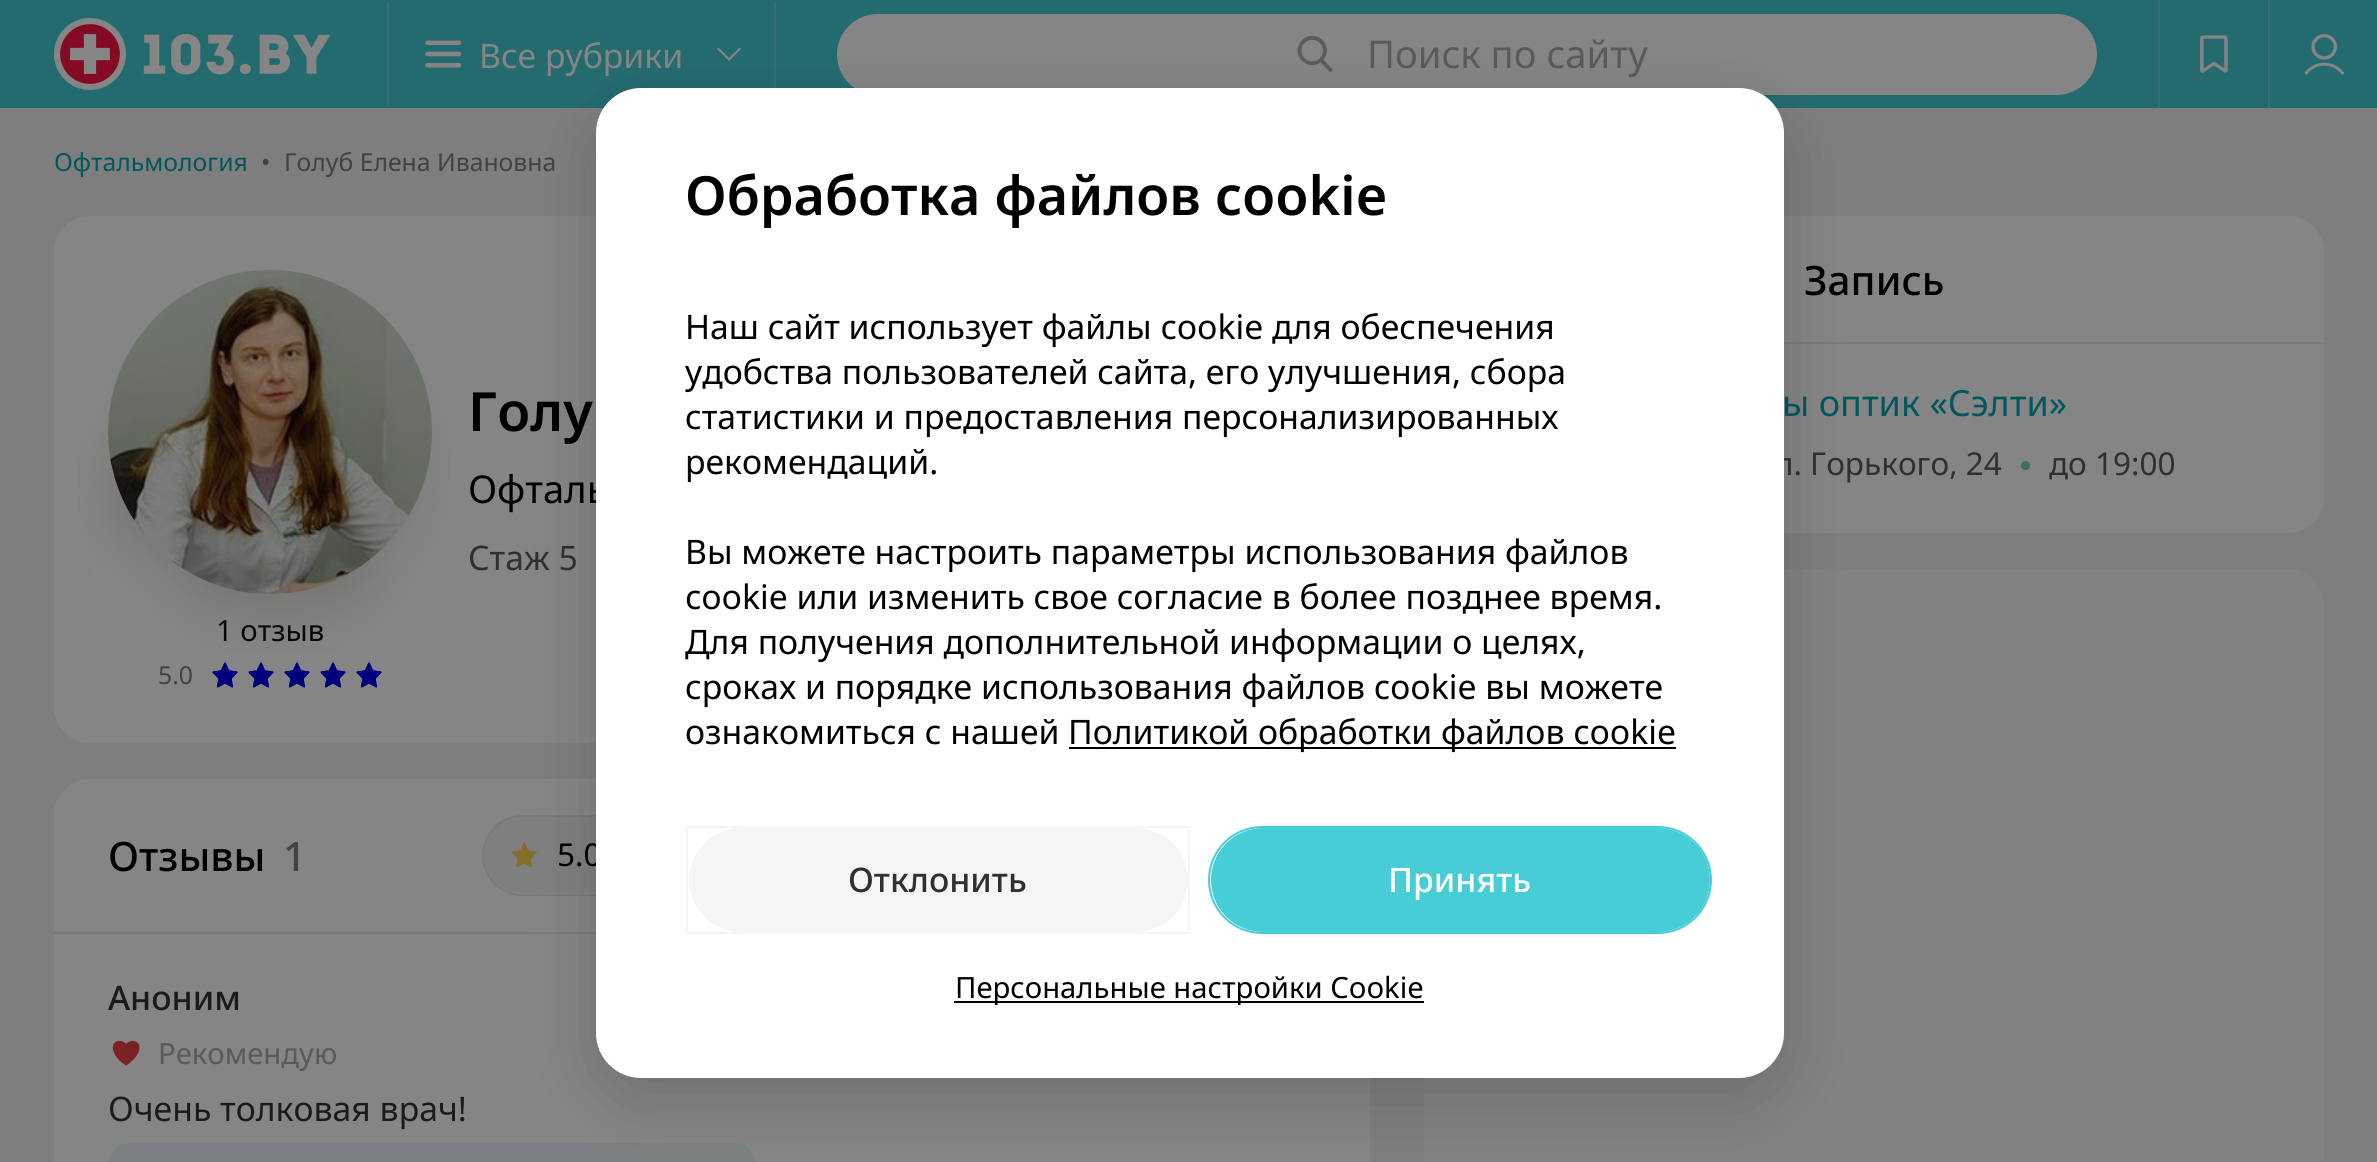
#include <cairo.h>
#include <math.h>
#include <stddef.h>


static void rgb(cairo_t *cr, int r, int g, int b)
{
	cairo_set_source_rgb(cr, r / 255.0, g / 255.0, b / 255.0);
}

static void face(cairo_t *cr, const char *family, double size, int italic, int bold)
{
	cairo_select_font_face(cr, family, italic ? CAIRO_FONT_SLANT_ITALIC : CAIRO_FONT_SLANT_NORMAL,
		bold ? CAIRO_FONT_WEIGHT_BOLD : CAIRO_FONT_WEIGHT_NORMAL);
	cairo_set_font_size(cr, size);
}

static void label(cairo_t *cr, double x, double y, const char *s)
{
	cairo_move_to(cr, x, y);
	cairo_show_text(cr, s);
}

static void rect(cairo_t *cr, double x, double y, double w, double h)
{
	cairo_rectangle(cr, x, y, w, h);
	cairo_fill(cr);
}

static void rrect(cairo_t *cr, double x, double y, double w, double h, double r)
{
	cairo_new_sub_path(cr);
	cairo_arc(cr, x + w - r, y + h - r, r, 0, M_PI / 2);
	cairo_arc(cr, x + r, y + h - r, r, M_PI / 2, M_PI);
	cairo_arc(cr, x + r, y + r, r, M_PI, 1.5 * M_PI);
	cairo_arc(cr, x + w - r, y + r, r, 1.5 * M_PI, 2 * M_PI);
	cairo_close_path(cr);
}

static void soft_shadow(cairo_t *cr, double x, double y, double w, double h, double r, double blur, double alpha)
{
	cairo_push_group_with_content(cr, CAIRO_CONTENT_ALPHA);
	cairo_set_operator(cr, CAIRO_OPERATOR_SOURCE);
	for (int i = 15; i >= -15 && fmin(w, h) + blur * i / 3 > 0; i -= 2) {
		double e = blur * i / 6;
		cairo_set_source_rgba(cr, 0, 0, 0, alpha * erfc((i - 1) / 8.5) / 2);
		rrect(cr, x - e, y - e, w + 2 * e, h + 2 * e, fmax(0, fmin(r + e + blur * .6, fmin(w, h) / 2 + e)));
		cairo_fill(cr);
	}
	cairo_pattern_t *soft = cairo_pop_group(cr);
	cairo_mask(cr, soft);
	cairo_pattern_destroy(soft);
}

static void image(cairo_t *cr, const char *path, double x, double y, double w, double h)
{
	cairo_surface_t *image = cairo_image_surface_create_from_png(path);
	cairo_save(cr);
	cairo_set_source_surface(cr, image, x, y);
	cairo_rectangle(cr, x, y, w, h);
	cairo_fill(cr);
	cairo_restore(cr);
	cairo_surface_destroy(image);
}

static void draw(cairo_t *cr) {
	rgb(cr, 126, 126, 126);
	cairo_paint(cr);
	rgb(cr, 36, 107, 111);
	rect(cr, 0, 0, 2377, 108);
	image(cr, "image0.png", 54, 18, 276, 72);
	rgb(cr, 52, 111, 115);
	rect(cr, 774, 2, 2, 86);
	rect(cr, 387, 2, 2, 104);
	image(cr, "image1.png", 425, 40, 37, 28);
	face(cr, "Noto Sans", 33.75, 0, 0);
	rgb(cr, 133, 133, 133);
	label(cr, 479, 68, "Все рубрики");
	cairo_new_path(cr);
	cairo_move_to(cr, 729, 61);
	cairo_line_to(cr, 717, 49);
	cairo_line_to(cr, 718.5, 47.5);
	cairo_line_to(cr, 729, 58);
	cairo_line_to(cr, 739.5, 47.5);
	cairo_line_to(cr, 741, 49);
	cairo_close_path(cr);
	cairo_fill(cr);
	rrect(cr, 837, 14, 1260, 81, 40.5);
	cairo_fill(cr);
	image(cr, "image2.png", 1297, 35, 36, 37);
	face(cr, "Noto Sans", 38.25, 0, 0);
	rgb(cr, 90, 90, 90);
	label(cr, 1367, 68, "Поиск по сайту");
	rgb(cr, 52, 111, 115);
	rect(cr, 2158, 0, 2, 108);
	image(cr, "image3.png", 2200, 35, 28, 38);
	rect(cr, 2268, 0, 2, 108);
	image(cr, "image4.png", 2304, 34, 40, 41);
	face(cr, "Noto Sans", 24.75, 0, 0);
	rgb(cr, 0, 87, 94);
	label(cr, 54, 171, "Офтальмология");
	rgb(cr, 66, 66, 66);
	label(cr, 261, 171, "•");
	label(cr, 284, 171, "Голуб Елена Ивановна");
	rgb(cr, 133, 133, 133);
	rrect(cr, 54, 216, 1316, 527, 36);
	cairo_fill(cr);
	face(cr, "Noto Sans SemiBold", 54, 0, 0);
	rgb(cr, 0, 0, 0);
	label(cr, 468, 431, "Голу");
	face(cr, "Noto Sans", 38.25, 0, 0);
	label(cr, 468, 503, "Офталь");
	face(cr, "Noto Sans", 33.75, 0, 0);
	rgb(cr, 48, 48, 48);
	label(cr, 468, 570, "Стаж 5");
	rgb(cr, 127, 127, 127);
	cairo_new_path(cr);
	cairo_arc(cr, 270, 432, 162, 0, 2 * M_PI);
	cairo_fill(cr);
	face(cr, "Noto Sans", 29.25, 0, 0);
	rgb(cr, 0, 0, 0);
	label(cr, 216, 641, "1 отзыв");
	image(cr, "image6.png", 78, 286, 372, 365);
	image(cr, "image5.png", 108, 270, 324, 324);
	face(cr, "Noto Sans", 24.75, 0, 0);
	rgb(cr, 66, 66, 66);
	label(cr, 158, 684, "5.0");
	image(cr, "image7.png", 212, 662, 26, 26);
	image(cr, "image8.png", 212, 662, 26, 26);
	image(cr, "image7.png", 248, 662, 26, 26);
	image(cr, "image8.png", 248, 662, 26, 26);
	image(cr, "image7.png", 284, 662, 26, 26);
	image(cr, "image8.png", 284, 662, 26, 26);
	image(cr, "image7.png", 320, 662, 26, 26);
	image(cr, "image8.png", 320, 662, 26, 26);
	image(cr, "image7.png", 356, 662, 26, 26);
	image(cr, "image8.png", 356, 662, 26, 26);
	rgb(cr, 133, 133, 133);
	rrect(cr, 54, 779, 1316, 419, 36);
	cairo_fill(cr);
	rgb(cr, 122, 122, 122);
	rect(cr, 54, 932, 542, 2);
	face(cr, "Noto Sans Medium", 40.5, 0, 0);
	rgb(cr, 0, 0, 0);
	label(cr, 108, 871, "Отзывы");
	rgb(cr, 66, 66, 66);
	label(cr, 283, 871, "1");
	rgb(cr, 127, 127, 127);
	rrect(cr, 484, 817, 830, 76, 38);
	cairo_fill(cr);
	rrect(cr, 483, 816, 832, 79, 39.5);
	rgb(cr, 122, 122, 122);
	cairo_stroke(cr);
	image(cr, "image10.png", 512, 842, 25, 26);
	image(cr, "image9.png", 511, 842, 26, 26);
	face(cr, "Noto Sans", 31.5, 0, 0);
	rgb(cr, 0, 0, 0);
	label(cr, 557, 866, "5.0");
	face(cr, "Noto Sans Medium", 33.75, 0, 0);
	rgb(cr, 27, 27, 27);
	label(cr, 108, 1010, "Аноним");
	image(cr, "image11.png", 112, 1040, 28, 26);
	face(cr, "Noto Sans", 29.25, 0, 0);
	rgb(cr, 90, 90, 90);
	label(cr, 158, 1064, "Рекомендую");
	face(cr, "Noto Sans", 33.75, 0, 0);
	rgb(cr, 27, 27, 27);
	label(cr, 108, 1121, "Очень толковая врач!");
	rgb(cr, 123, 129, 130);
	rrect(cr, 108, 1143, 648, 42, 22.5);
	cairo_fill(cr);
	rgb(cr, 133, 133, 133);
	rrect(cr, 1424, 216, 900, 317, 36);
	cairo_fill(cr);
	rgb(cr, 122, 122, 122);
	rect(cr, 1784, 342, 540, 2);
	face(cr, "Noto Sans Medium", 40.5, 0, 0);
	rgb(cr, 0, 0, 0);
	label(cr, 1804, 295, "Запись");
	face(cr, "Noto Sans", 36, 0, 0);
	rgb(cr, 0, 87, 94);
	label(cr, 1782, 416, "ы оптик «Сэлти»");
	face(cr, "Noto Sans", 31.5, 0, 0);
	rgb(cr, 48, 48, 48);
	label(cr, 1775, 475, "л. Горького, 24");
	rgb(cr, 59, 112, 93);
	cairo_new_path(cr);
	cairo_arc(cr, 2025.5, 465.5, 4.5, 0, 2 * M_PI);
	cairo_fill(cr);
	rgb(cr, 48, 48, 48);
	label(cr, 2049, 475, "до 19:00");
	cairo_set_source_rgba(cr, 0.522, 0.522, 0.522, 0.64);
	rrect(cr, 1424, 569, 900, 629, 36);
	cairo_fill(cr);
	rgb(cr, 0, 0, 0);
	soft_shadow(cr, 596, 110, 1188, 990, 45, 34, 0.16);
	rgb(cr, 255, 255, 255);
	rrect(cr, 596, 88, 1188, 990, 45);
	cairo_fill(cr);
	face(cr, "Noto Sans SemiBold", 54, 0, 0);
	rgb(cr, 0, 0, 0);
	label(cr, 685, 215, "Обработка файлов cookie");
	face(cr, "Noto Sans", 33.75, 0, 0);
	label(cr, 685, 339, "Наш сайт использует файлы cookie для обеспечения");
	label(cr, 685, 384, "удобства пользователей сайта, его улучшения, сбора");
	label(cr, 685, 429, "статистики и предоставления персонализированных");
	label(cr, 685, 474, "рекомендаций.");
	label(cr, 685, 564, "Вы можете настроить параметры использования файлов");
	label(cr, 685, 609, "cookie или изменить свое согласие в более позднее время.");
	label(cr, 685, 654, "Для получения дополнительной информации о целях,");
	label(cr, 685, 699, "сроках и порядке использования файлов cookie вы можете");
	label(cr, 685, 744, "ознакомиться с нашей");
	rect(cr, 1069, 747, 607, 2);
	label(cr, 1068, 744, "Политикой обработки файлов cookie");
	rgb(cr, 245, 245, 245);
	rrect(cr, 689, 828, 499, 104, 52);
	cairo_fill(cr);
	cairo_rectangle(cr, 687, 827, 502, 106);
	cairo_set_source_rgba(cr, 0, 0, 0, 0.04);
	cairo_stroke(cr);
	face(cr, "Noto Sans Medium", 33.75, 0, 0);
	rgb(cr, 48, 48, 48);
	label(cr, 848, 892, "Отклонить");
	rgb(cr, 70, 205, 214);
	rrect(cr, 1211, 828, 499, 104, 52);
	cairo_fill(cr);
	rrect(cr, 1209, 827, 502, 106, 53);
	cairo_stroke(cr);
	rgb(cr, 255, 255, 255);
	label(cr, 1388, 892, "Принять");
	rgb(cr, 0, 0, 0);
	rect(cr, 954, 1001, 470, 2);
	face(cr, "Noto Sans", 29.25, 0, 0);
	label(cr, 955, 998, "Персональные настройки Cookie");
}

int main(void) {
	cairo_surface_t *surface = cairo_image_surface_create(CAIRO_FORMAT_RGB24, 2377, 1162);
	cairo_t *cr = cairo_create(surface);
	cairo_font_options_t *options = cairo_font_options_create();
	cairo_font_options_set_hint_metrics(options, CAIRO_HINT_METRICS_OFF);
	cairo_font_options_set_hint_style(options, CAIRO_HINT_STYLE_NONE);
	cairo_set_font_options(cr, options);
	cairo_set_miter_limit(cr, 4);
	draw(cr);
	cairo_surface_write_to_png(surface, "render.png");
	cairo_font_options_destroy(options);
	cairo_destroy(cr);
	cairo_surface_destroy(surface);
	return 0;
}
